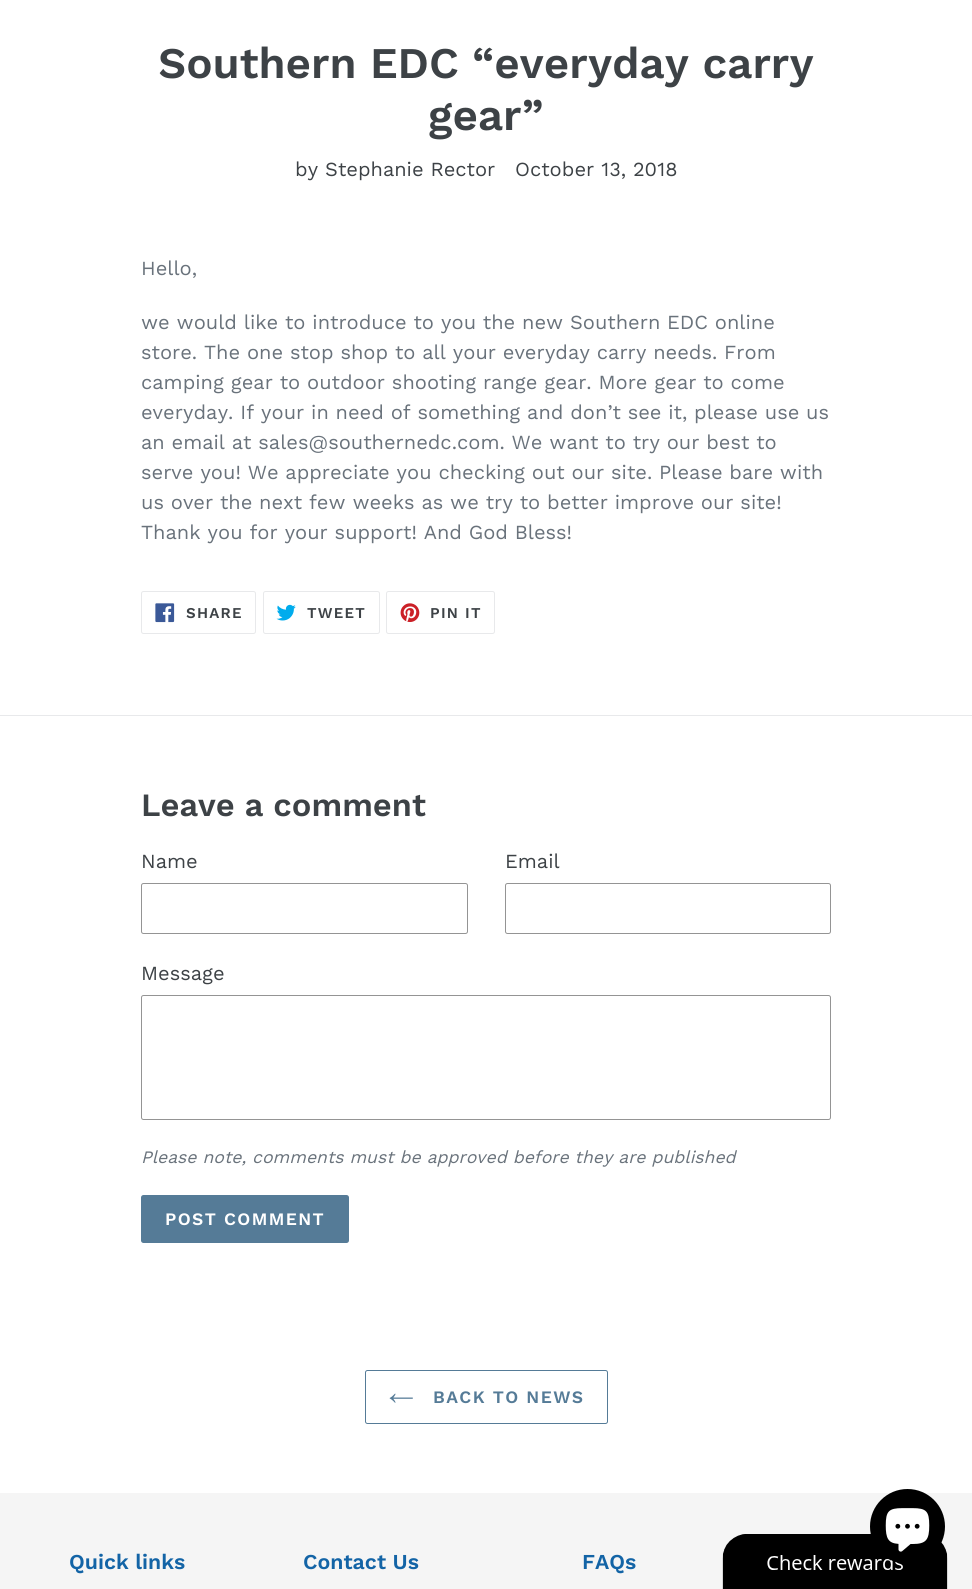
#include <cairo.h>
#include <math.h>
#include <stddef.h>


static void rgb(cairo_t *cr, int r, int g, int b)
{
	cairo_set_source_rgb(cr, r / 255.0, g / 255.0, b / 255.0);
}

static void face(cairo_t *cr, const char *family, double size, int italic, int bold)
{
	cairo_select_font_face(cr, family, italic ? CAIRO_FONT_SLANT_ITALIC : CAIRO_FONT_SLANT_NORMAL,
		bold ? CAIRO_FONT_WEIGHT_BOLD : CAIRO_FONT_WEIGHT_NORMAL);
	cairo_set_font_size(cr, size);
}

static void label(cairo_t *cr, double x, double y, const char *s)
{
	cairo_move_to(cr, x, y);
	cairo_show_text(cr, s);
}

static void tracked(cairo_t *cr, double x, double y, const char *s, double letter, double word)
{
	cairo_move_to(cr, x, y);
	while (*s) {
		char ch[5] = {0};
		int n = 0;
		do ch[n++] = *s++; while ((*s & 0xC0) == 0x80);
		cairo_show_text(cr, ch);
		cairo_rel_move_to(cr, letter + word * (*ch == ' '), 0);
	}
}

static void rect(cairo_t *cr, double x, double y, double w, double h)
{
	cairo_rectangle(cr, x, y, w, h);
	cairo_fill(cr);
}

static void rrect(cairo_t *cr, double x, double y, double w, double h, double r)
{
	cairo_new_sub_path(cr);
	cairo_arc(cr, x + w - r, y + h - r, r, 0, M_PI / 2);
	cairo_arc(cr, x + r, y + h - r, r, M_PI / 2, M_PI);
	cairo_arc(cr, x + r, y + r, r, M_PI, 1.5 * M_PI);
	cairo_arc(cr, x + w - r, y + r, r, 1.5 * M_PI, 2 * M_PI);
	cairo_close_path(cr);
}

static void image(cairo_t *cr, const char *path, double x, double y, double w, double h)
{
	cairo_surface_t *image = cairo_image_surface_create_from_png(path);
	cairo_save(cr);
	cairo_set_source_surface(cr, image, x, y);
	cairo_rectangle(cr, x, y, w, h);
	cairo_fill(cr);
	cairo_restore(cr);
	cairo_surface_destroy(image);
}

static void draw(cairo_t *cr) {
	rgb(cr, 255, 255, 255);
	cairo_paint(cr);
	face(cr, "Work Sans SemiBold", 43.75, 0, 0);
	rgb(cr, 61, 66, 70);
	label(cr, 158, 78, "Southern EDC “everyday carry");
	label(cr, 428, 130, "gear”");
	face(cr, "Work Sans", 20, 0, 0);
	label(cr, 295, 176, "by Stephanie Rector");
	label(cr, 515, 176, "October 13, 2018");
	rgb(cr, 105, 114, 123);
	label(cr, 141, 275, "Hello,");
	label(cr, 141, 329, "we would like to introduce to you the new Southern EDC online");
	label(cr, 141, 359, "store. The one stop shop to all your everyday carry needs. From");
	label(cr, 141, 389, "camping gear to outdoor shooting range gear. More gear to come");
	label(cr, 141, 419, "everyday. If your in need of something and don’t see it, please use us");
	label(cr, 141, 449, "an email at sales@southernedc.com. We want to try our best to");
	label(cr, 141, 479, "serve you! We appreciate you checking out our site. Please bare with");
	label(cr, 141, 509, "us over the next few weeks as we try to better improve our site!");
	label(cr, 141, 539, "Thank you for your support! And God Bless!");
	rrect(cr, 141.5, 591.5, 114, 42, 2);
	rgb(cr, 232, 233, 235);
	cairo_set_line_width(cr, 1);
	cairo_stroke(cr);
	image(cr, "image0.png", 155, 603, 20, 20);
	face(cr, "Work Sans SemiBold", 15, 0, 0);
	rgb(cr, 61, 66, 70);
	tracked(cr, 186, 618, "SHARE", 1.25, 0);
	rrect(cr, 263.5, 591.5, 116, 42, 2);
	rgb(cr, 232, 233, 235);
	cairo_stroke(cr);
	image(cr, "image1.png", 276, 604, 20, 17);
	rgb(cr, 61, 66, 70);
	tracked(cr, 307, 618, "TWEET", 1.25, 0);
	rrect(cr, 386.5, 591.5, 108, 42, 2);
	rgb(cr, 232, 233, 235);
	cairo_stroke(cr);
	image(cr, "image2.png", 400, 603, 20, 19);
	rgb(cr, 61, 66, 70);
	tracked(cr, 430, 618, "PIN IT", 1.25, 0);
	rgb(cr, 232, 233, 235);
	rect(cr, 0, 715, 972, 1);
	face(cr, "Work Sans SemiBold", 32.5, 0, 0);
	rgb(cr, 61, 66, 70);
	label(cr, 141, 816, "Leave a comment");
	face(cr, "Work Sans", 20, 0, 0);
	label(cr, 141, 868, "Name");
	rrect(cr, 141.5, 883.5, 326, 50, 2);
	rgb(cr, 148, 148, 148);
	cairo_stroke(cr);
	rgb(cr, 61, 66, 70);
	label(cr, 505, 868, "Email");
	rrect(cr, 505.5, 883.5, 325, 50, 2);
	rgb(cr, 148, 148, 148);
	cairo_stroke(cr);
	rgb(cr, 61, 66, 70);
	label(cr, 141, 980, "Message");
	rrect(cr, 141.5, 995.5, 689, 124, 2);
	rgb(cr, 148, 148, 148);
	cairo_stroke(cr);
	face(cr, "Work Sans", 17.5, 1, 0);
	rgb(cr, 105, 114, 123);
	label(cr, 141, 1163, "Please note, comments must be approved before they are published");
	rgb(cr, 85, 123, 151);
	rrect(cr, 141, 1195, 208, 48, 2.5);
	cairo_fill(cr);
	face(cr, "Work Sans SemiBold", 17.5, 0, 0);
	rgb(cr, 255, 255, 255);
	tracked(cr, 165, 1225, "POST COMMENT", 1.4, 0);
	rrect(cr, 365.5, 1370.5, 242, 53, 2);
	rgb(cr, 85, 123, 151);
	cairo_stroke(cr);
	image(cr, "image3.png", 389, 1393, 24, 10);
	tracked(cr, 433, 1403, "BACK TO NEWS", 1.4, 0);
	rgb(cr, 245, 245, 245);
	rect(cr, 0, 1493, 972, 96);
	face(cr, "Work Sans SemiBold", 21.25, 0, 0);
	rgb(cr, 19, 100, 166);
	label(cr, 69, 1569, "Quick links");
	label(cr, 303, 1569, "Contact Us");
	label(cr, 582, 1569, "FAQs");
	image(cr, "image5.png", 722, 1534, 226, 55);
	rgb(cr, 0, 0, 0);
	cairo_arc(cr, 907.5, 1526.5, 37.5, 0, 2 * M_PI);
	cairo_fill(cr);
	image(cr, "image4.png", 885, 1508, 45, 44);
}

int main(void) {
	cairo_surface_t *surface = cairo_image_surface_create(CAIRO_FORMAT_RGB24, 972, 1589);
	cairo_t *cr = cairo_create(surface);
	cairo_font_options_t *options = cairo_font_options_create();
	cairo_font_options_set_hint_metrics(options, CAIRO_HINT_METRICS_OFF);
	cairo_font_options_set_hint_style(options, CAIRO_HINT_STYLE_NONE);
	cairo_set_font_options(cr, options);
	cairo_set_miter_limit(cr, 4);
	draw(cr);
	cairo_surface_write_to_png(surface, "render.png");
	cairo_font_options_destroy(options);
	cairo_destroy(cr);
	cairo_surface_destroy(surface);
	return 0;
}
